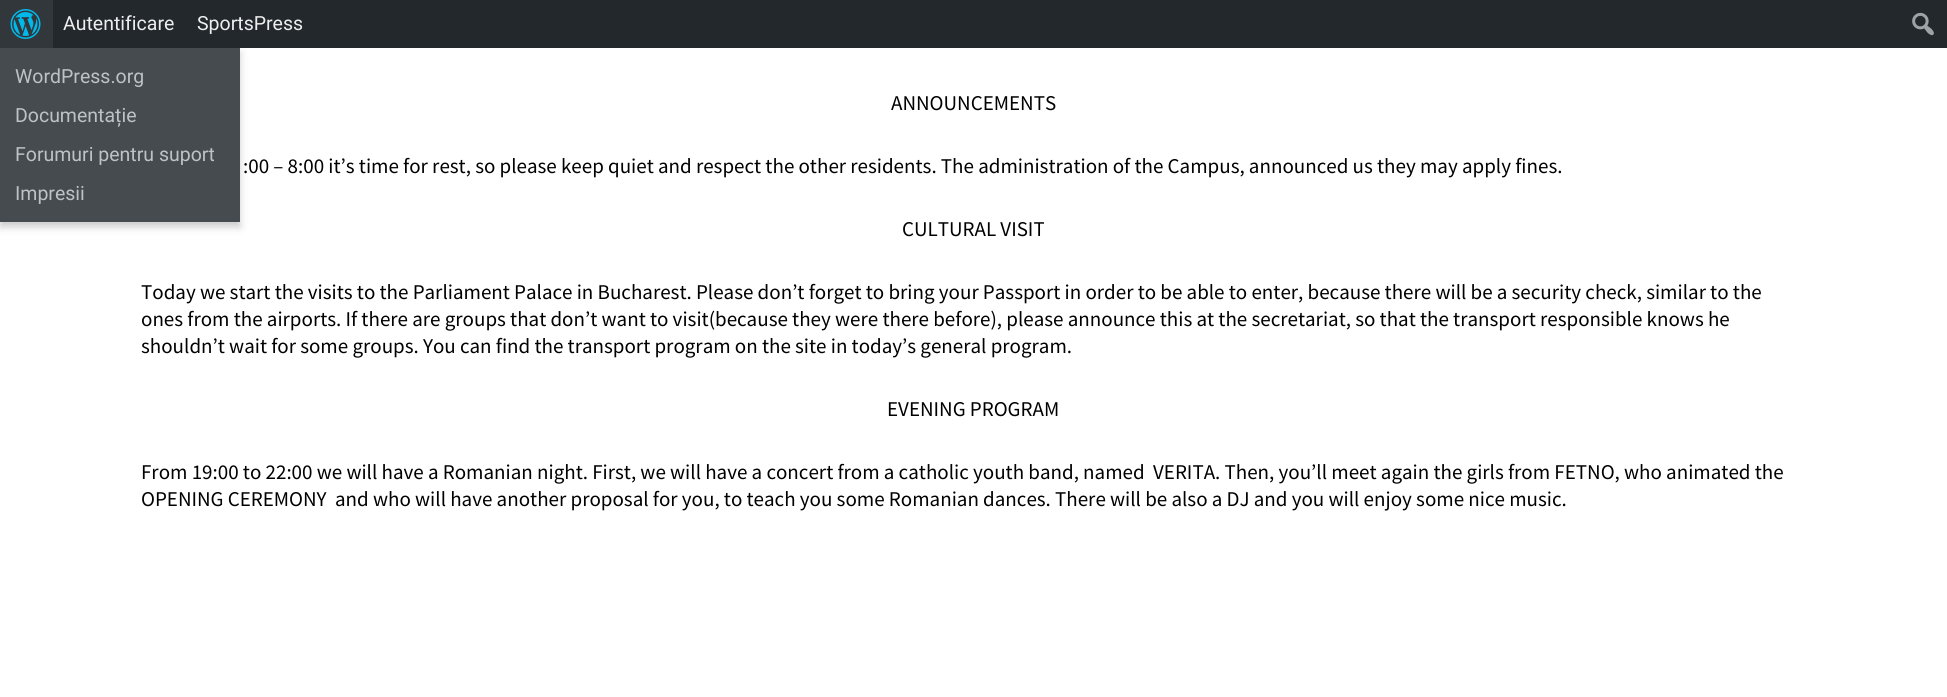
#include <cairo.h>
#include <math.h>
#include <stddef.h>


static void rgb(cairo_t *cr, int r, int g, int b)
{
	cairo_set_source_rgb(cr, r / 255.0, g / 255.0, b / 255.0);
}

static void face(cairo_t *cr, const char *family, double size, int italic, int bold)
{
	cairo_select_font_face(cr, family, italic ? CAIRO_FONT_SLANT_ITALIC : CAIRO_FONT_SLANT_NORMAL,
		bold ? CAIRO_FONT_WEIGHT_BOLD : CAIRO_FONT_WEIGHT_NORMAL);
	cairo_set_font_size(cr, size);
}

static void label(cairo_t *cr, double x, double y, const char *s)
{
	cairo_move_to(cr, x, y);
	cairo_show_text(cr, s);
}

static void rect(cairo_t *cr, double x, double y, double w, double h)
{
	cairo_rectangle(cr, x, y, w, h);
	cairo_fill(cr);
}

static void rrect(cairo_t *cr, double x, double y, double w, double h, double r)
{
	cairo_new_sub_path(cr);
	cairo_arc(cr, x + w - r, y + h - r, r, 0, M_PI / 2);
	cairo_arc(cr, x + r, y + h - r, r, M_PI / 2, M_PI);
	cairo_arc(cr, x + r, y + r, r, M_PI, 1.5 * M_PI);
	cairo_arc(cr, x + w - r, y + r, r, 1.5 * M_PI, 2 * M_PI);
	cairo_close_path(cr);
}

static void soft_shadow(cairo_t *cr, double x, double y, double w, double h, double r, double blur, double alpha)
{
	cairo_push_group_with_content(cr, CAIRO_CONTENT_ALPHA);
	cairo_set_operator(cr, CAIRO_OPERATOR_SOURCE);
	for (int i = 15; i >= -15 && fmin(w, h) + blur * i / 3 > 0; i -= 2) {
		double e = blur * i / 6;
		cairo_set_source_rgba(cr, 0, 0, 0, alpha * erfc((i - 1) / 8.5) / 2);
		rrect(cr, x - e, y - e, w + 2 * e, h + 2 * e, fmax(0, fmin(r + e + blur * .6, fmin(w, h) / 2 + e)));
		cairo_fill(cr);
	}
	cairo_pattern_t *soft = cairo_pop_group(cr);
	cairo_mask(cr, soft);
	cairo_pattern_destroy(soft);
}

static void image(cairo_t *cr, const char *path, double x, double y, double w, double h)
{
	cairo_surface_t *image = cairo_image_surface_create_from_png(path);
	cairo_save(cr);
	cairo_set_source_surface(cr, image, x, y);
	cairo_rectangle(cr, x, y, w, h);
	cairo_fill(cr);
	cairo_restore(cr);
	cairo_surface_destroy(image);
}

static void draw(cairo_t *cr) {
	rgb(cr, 255, 255, 255);
	cairo_paint(cr);
	rgb(cr, 35, 40, 45);
	rect(cr, 53, 0, 1894, 48);
	face(cr, "Roboto", 19.5, 0, 0);
	rgb(cr, 238, 238, 238);
	label(cr, 63, 30, "Autentificare");
	label(cr, 197, 30, "SportsPress");
	rgb(cr, 50, 55, 60);
	rect(cr, 0, 0, 53, 48);
	image(cr, "image0.png", 10, 9, 31, 30);
	rgb(cr, 0, 0, 0);
	soft_shadow(cr, 0, 53, 240, 174, 0, 4, 0.2);
	rgb(cr, 70, 75, 80);
	rect(cr, 0, 48, 240, 174);
	rgb(cr, 189, 194, 199);
	label(cr, 15, 83, "WordPress.org");
	label(cr, 15, 122, "Documentație");
	label(cr, 15, 161, "Forumuri pentru suport");
	label(cr, 15, 200, "Impresii");
	image(cr, "image1.png", 1912, 12, 22, 24);
	face(cr, "Source Sans Pro", 21, 0, 0);
	rgb(cr, 0, 0, 0);
	label(cr, 891, 110, "ANNOUNCEMENTS");
	label(cr, 243, 173, ":00 – 8:00 it’s time for rest, so please keep quiet and respect the other residents. The administration of the Campus, announced us they may apply fines.");
	label(cr, 902, 236, "CULTURAL VISIT");
	label(cr, 141, 299, "Today we start the visits to the Parliament Palace in Bucharest. Please don’t forget to bring your Passport in order to be able to enter, because there will be a security check, similar to the");
	label(cr, 141, 326, "ones from the airports. If there are groups that don’t want to visit(because they were there before), please announce this at the secretariat, so that the transport responsible knows he");
	label(cr, 141, 353, "shouldn’t wait for some groups. You can find the transport program on the site in today’s general program.");
	label(cr, 887, 416, "EVENING PROGRAM");
	label(cr, 141, 479, "From 19:00 to 22:00 we will have a Romanian night. First, we will have a concert from a catholic youth band, named  VERITA. Then, you’ll meet again the girls from FETNO, who animated the");
	label(cr, 141, 506, "OPENING CEREMONY  and who will have another proposal for you, to teach you some Romanian dances. There will be also a DJ and you will enjoy some nice music.");
}

int main(void) {
	cairo_surface_t *surface = cairo_image_surface_create(CAIRO_FORMAT_RGB24, 1947, 697);
	cairo_t *cr = cairo_create(surface);
	cairo_font_options_t *options = cairo_font_options_create();
	cairo_font_options_set_hint_metrics(options, CAIRO_HINT_METRICS_OFF);
	cairo_font_options_set_hint_style(options, CAIRO_HINT_STYLE_NONE);
	cairo_set_font_options(cr, options);
	cairo_set_miter_limit(cr, 4);
	draw(cr);
	cairo_surface_write_to_png(surface, "render.png");
	cairo_font_options_destroy(options);
	cairo_destroy(cr);
	cairo_surface_destroy(surface);
	return 0;
}
